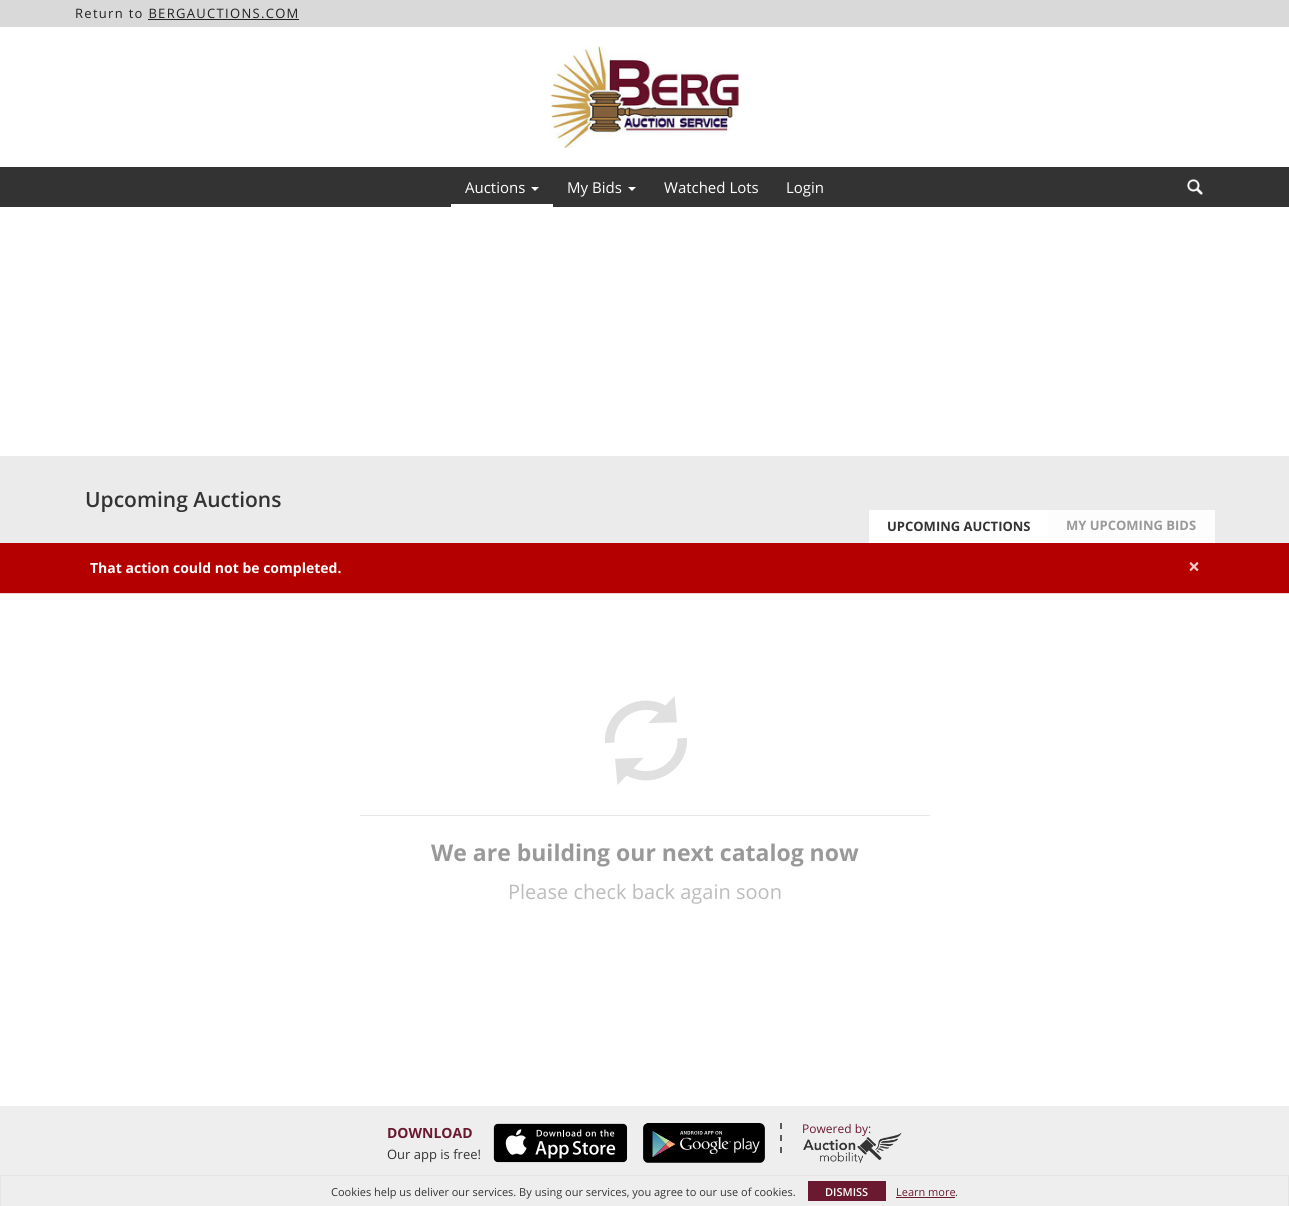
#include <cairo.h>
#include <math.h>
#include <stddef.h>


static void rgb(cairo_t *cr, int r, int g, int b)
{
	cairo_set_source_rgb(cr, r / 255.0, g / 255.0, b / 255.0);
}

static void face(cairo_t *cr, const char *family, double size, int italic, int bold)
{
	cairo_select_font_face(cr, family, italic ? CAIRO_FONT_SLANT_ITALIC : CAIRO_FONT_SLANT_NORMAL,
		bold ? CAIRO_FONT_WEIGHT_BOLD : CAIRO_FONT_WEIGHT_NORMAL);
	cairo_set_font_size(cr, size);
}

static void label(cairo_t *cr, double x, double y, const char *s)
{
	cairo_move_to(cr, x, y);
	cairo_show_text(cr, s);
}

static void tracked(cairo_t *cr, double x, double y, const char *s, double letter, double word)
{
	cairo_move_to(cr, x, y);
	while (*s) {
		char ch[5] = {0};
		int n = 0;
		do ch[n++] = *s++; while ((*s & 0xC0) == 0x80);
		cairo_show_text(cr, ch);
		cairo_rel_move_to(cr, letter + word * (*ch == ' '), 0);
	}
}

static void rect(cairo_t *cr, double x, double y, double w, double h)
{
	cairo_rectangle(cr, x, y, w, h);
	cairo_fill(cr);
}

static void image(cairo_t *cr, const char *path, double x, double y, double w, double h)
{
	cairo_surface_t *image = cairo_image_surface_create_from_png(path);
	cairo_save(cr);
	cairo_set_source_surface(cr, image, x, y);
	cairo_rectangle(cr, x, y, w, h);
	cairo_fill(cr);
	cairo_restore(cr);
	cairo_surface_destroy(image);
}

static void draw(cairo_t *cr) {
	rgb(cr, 255, 255, 255);
	cairo_paint(cr);
	rgb(cr, 217, 217, 217);
	rect(cr, 0, 0, 1289, 27);
	face(cr, "Open Sans", 13, 0, 0);
	rgb(cr, 33, 33, 33);
	tracked(cr, 75, 18, "Return to BERGAUCTIONS.COM", 1.3, 0);
	rect(cr, 148, 19, 151, 1);
	rgb(cr, 51, 51, 51);
	rect(cr, 0, 167, 1289, 40);
	image(cr, "image0.png", 550, 46, 190, 103);
	rgb(cr, 255, 255, 255);
	rect(cr, 451, 204, 102, 3);
	face(cr, "Open Sans", 15, 0, 0);
	label(cr, 465, 193, "Auctions");
	cairo_new_path(cr);
	cairo_move_to(cr, 531, 187);
	cairo_line_to(cr, 539, 187);
	cairo_line_to(cr, 535, 191);
	cairo_close_path(cr);
	cairo_fill(cr);
	label(cr, 567, 193, "My Bids");
	cairo_new_path(cr);
	cairo_move_to(cr, 628, 187);
	cairo_line_to(cr, 636, 187);
	cairo_line_to(cr, 632, 191);
	cairo_close_path(cr);
	cairo_fill(cr);
	label(cr, 664, 193, "Watched Lots");
	label(cr, 786, 193, "Login");
	image(cr, "image1.png", 1187, 179, 16, 16);
	rgb(cr, 235, 235, 235);
	rect(cr, 0, 456, 1289, 87);
	face(cr, "Open Sans SemiBold", 21, 0, 0);
	rgb(cr, 51, 51, 51);
	label(cr, 85, 507, "Upcoming Auctions");
	rgb(cr, 255, 255, 255);
	rect(cr, 869, 510, 179, 33);
	face(cr, "Open Sans", 13, 0, 1);
	rgb(cr, 51, 51, 51);
	label(cr, 887, 531, "UPCOMING AUCTIONS");
	rgb(cr, 253, 253, 253);
	rect(cr, 1048, 510, 167, 33);
	rgb(cr, 153, 153, 153);
	label(cr, 1066, 530, "MY UPCOMING BIDS");
	rgb(cr, 181, 0, 0);
	rect(cr, 0, 543, 1289, 50);
	rgb(cr, 235, 204, 209);
	rect(cr, 0, 593, 1289, 1);
	face(cr, "Open Sans", 14, 0, 1);
	rgb(cr, 255, 255, 255);
	label(cr, 90, 573, "That action could not be completed.");
	face(cr, "Open Sans", 21, 0, 1);
	rgb(cr, 240, 204, 204);
	label(cr, 1188, 574, "×");
	image(cr, "image2.png", 605, 696, 82, 89);
	rgb(cr, 231, 231, 231);
	rect(cr, 360, 815, 570, 1);
	face(cr, "Open Sans", 23, 0, 1);
	rgb(cr, 153, 153, 153);
	label(cr, 431, 861, "We are building our next catalog now");
	face(cr, "Open Sans", 20, 0, 0);
	rgb(cr, 188, 188, 188);
	label(cr, 508, 899, "Please check back again soon");
	rgb(cr, 238, 238, 238);
	rect(cr, 0, 1106, 1289, 69);
	face(cr, "Open Sans", 14, 0, 1);
	rgb(cr, 106, 25, 48);
	label(cr, 387, 1138, "DOWNLOAD");
	face(cr, "Open Sans", 13, 0, 0);
	rgb(cr, 51, 51, 51);
	label(cr, 387, 1159, "Our app is free!");
	image(cr, "image3.png", 493, 1123, 135, 40);
	image(cr, "image4.png", 643, 1123, 122, 40);
	cairo_new_path(cr);
	cairo_move_to(cr, 781, 1123);
	cairo_line_to(cr, 781, 1129);
	cairo_move_to(cr, 781, 1135);
	cairo_line_to(cr, 781, 1141);
	cairo_move_to(cr, 781, 1147);
	cairo_line_to(cr, 781, 1153);
	rgb(cr, 89, 89, 89);
	cairo_stroke(cr);
	face(cr, "Open Sans", 12, 0, 0);
	rgb(cr, 106, 25, 48);
	label(cr, 802, 1133, "Powered by:");
	image(cr, "image5.png", 803, 1132, 99, 31);
	rgb(cr, 238, 238, 238);
	rect(cr, 1, 1176, 1287, 30);
	rgb(cr, 228, 228, 228);
	rect(cr, 0, 1175, 1289, 1);
	rect(cr, 1288, 1175, 1, 31);
	rect(cr, 0, 1175, 1, 31);
	face(cr, "Open Sans", 11, 0, 0);
	rgb(cr, 51, 51, 51);
	label(cr, 331, 1196, "Cookies help us deliver our services. By using our services, you agree to our use of cookies.");
	rgb(cr, 106, 25, 48);
	rect(cr, 808, 1181, 78, 20);
	face(cr, "Open Sans SemiBold", 11, 0, 0);
	rgb(cr, 255, 255, 255);
	label(cr, 825, 1196, "DISMISS");
	face(cr, "Open Sans", 11, 0, 0);
	rgb(cr, 106, 25, 48);
	label(cr, 896, 1196, "Learn more");
	rect(cr, 896, 1197, 59, 1);
	rgb(cr, 51, 51, 51);
	label(cr, 955, 1196, ".");
}

int main(void) {
	cairo_surface_t *surface = cairo_image_surface_create(CAIRO_FORMAT_RGB24, 1289, 1206);
	cairo_t *cr = cairo_create(surface);
	cairo_font_options_t *options = cairo_font_options_create();
	cairo_font_options_set_hint_metrics(options, CAIRO_HINT_METRICS_OFF);
	cairo_font_options_set_hint_style(options, CAIRO_HINT_STYLE_NONE);
	cairo_set_font_options(cr, options);
	cairo_set_miter_limit(cr, 4);
	draw(cr);
	cairo_surface_write_to_png(surface, "render.png");
	cairo_font_options_destroy(options);
	cairo_destroy(cr);
	cairo_surface_destroy(surface);
	return 0;
}
